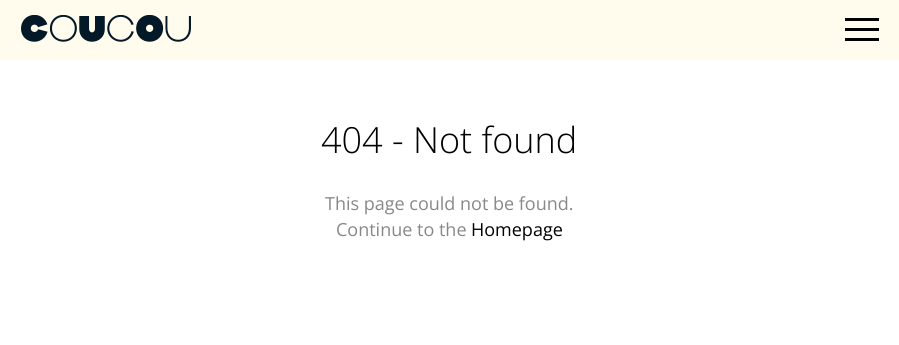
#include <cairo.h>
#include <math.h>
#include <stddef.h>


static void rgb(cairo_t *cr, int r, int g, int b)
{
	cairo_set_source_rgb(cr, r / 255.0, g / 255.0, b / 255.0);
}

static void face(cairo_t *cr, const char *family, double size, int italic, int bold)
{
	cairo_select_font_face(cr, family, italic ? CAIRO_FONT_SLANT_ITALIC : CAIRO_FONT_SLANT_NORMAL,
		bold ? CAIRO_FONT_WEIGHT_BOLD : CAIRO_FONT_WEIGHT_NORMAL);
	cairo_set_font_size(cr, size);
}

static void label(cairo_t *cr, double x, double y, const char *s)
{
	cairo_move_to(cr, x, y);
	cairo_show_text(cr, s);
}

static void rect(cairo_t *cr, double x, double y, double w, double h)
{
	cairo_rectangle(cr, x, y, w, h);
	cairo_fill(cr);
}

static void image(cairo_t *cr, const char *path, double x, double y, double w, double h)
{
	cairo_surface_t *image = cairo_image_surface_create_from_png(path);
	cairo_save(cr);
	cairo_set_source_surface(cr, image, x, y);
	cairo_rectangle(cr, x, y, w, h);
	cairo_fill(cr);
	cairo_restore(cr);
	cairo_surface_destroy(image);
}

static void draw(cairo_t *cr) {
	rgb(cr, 255, 255, 255);
	cairo_paint(cr);
	rgb(cr, 255, 251, 237);
	rect(cr, 0, 0, 899, 60);
	image(cr, "image0.png", 21, 15, 170, 27);
	rgb(cr, 0, 0, 0);
	rect(cr, 845, 28, 34, 3);
	rect(cr, 845, 18, 34, 3);
	rect(cr, 845, 38, 34, 3);
	face(cr, "Open Sans Light", 36, 0, 0);
	label(cr, 321, 153, "404 - Not found");
	face(cr, "Open Sans", 18, 0, 0);
	rgb(cr, 136, 136, 136);
	label(cr, 325, 210, "This page could not be found.");
	label(cr, 336, 236, "Continue to the");
	rgb(cr, 0, 0, 0);
	label(cr, 471, 236, "Homepage");
}

int main(void) {
	cairo_surface_t *surface = cairo_image_surface_create(CAIRO_FORMAT_RGB24, 899, 345);
	cairo_t *cr = cairo_create(surface);
	cairo_font_options_t *options = cairo_font_options_create();
	cairo_font_options_set_hint_metrics(options, CAIRO_HINT_METRICS_OFF);
	cairo_font_options_set_hint_style(options, CAIRO_HINT_STYLE_NONE);
	cairo_set_font_options(cr, options);
	cairo_set_miter_limit(cr, 4);
	draw(cr);
	cairo_surface_write_to_png(surface, "render.png");
	cairo_font_options_destroy(options);
	cairo_destroy(cr);
	cairo_surface_destroy(surface);
	return 0;
}
